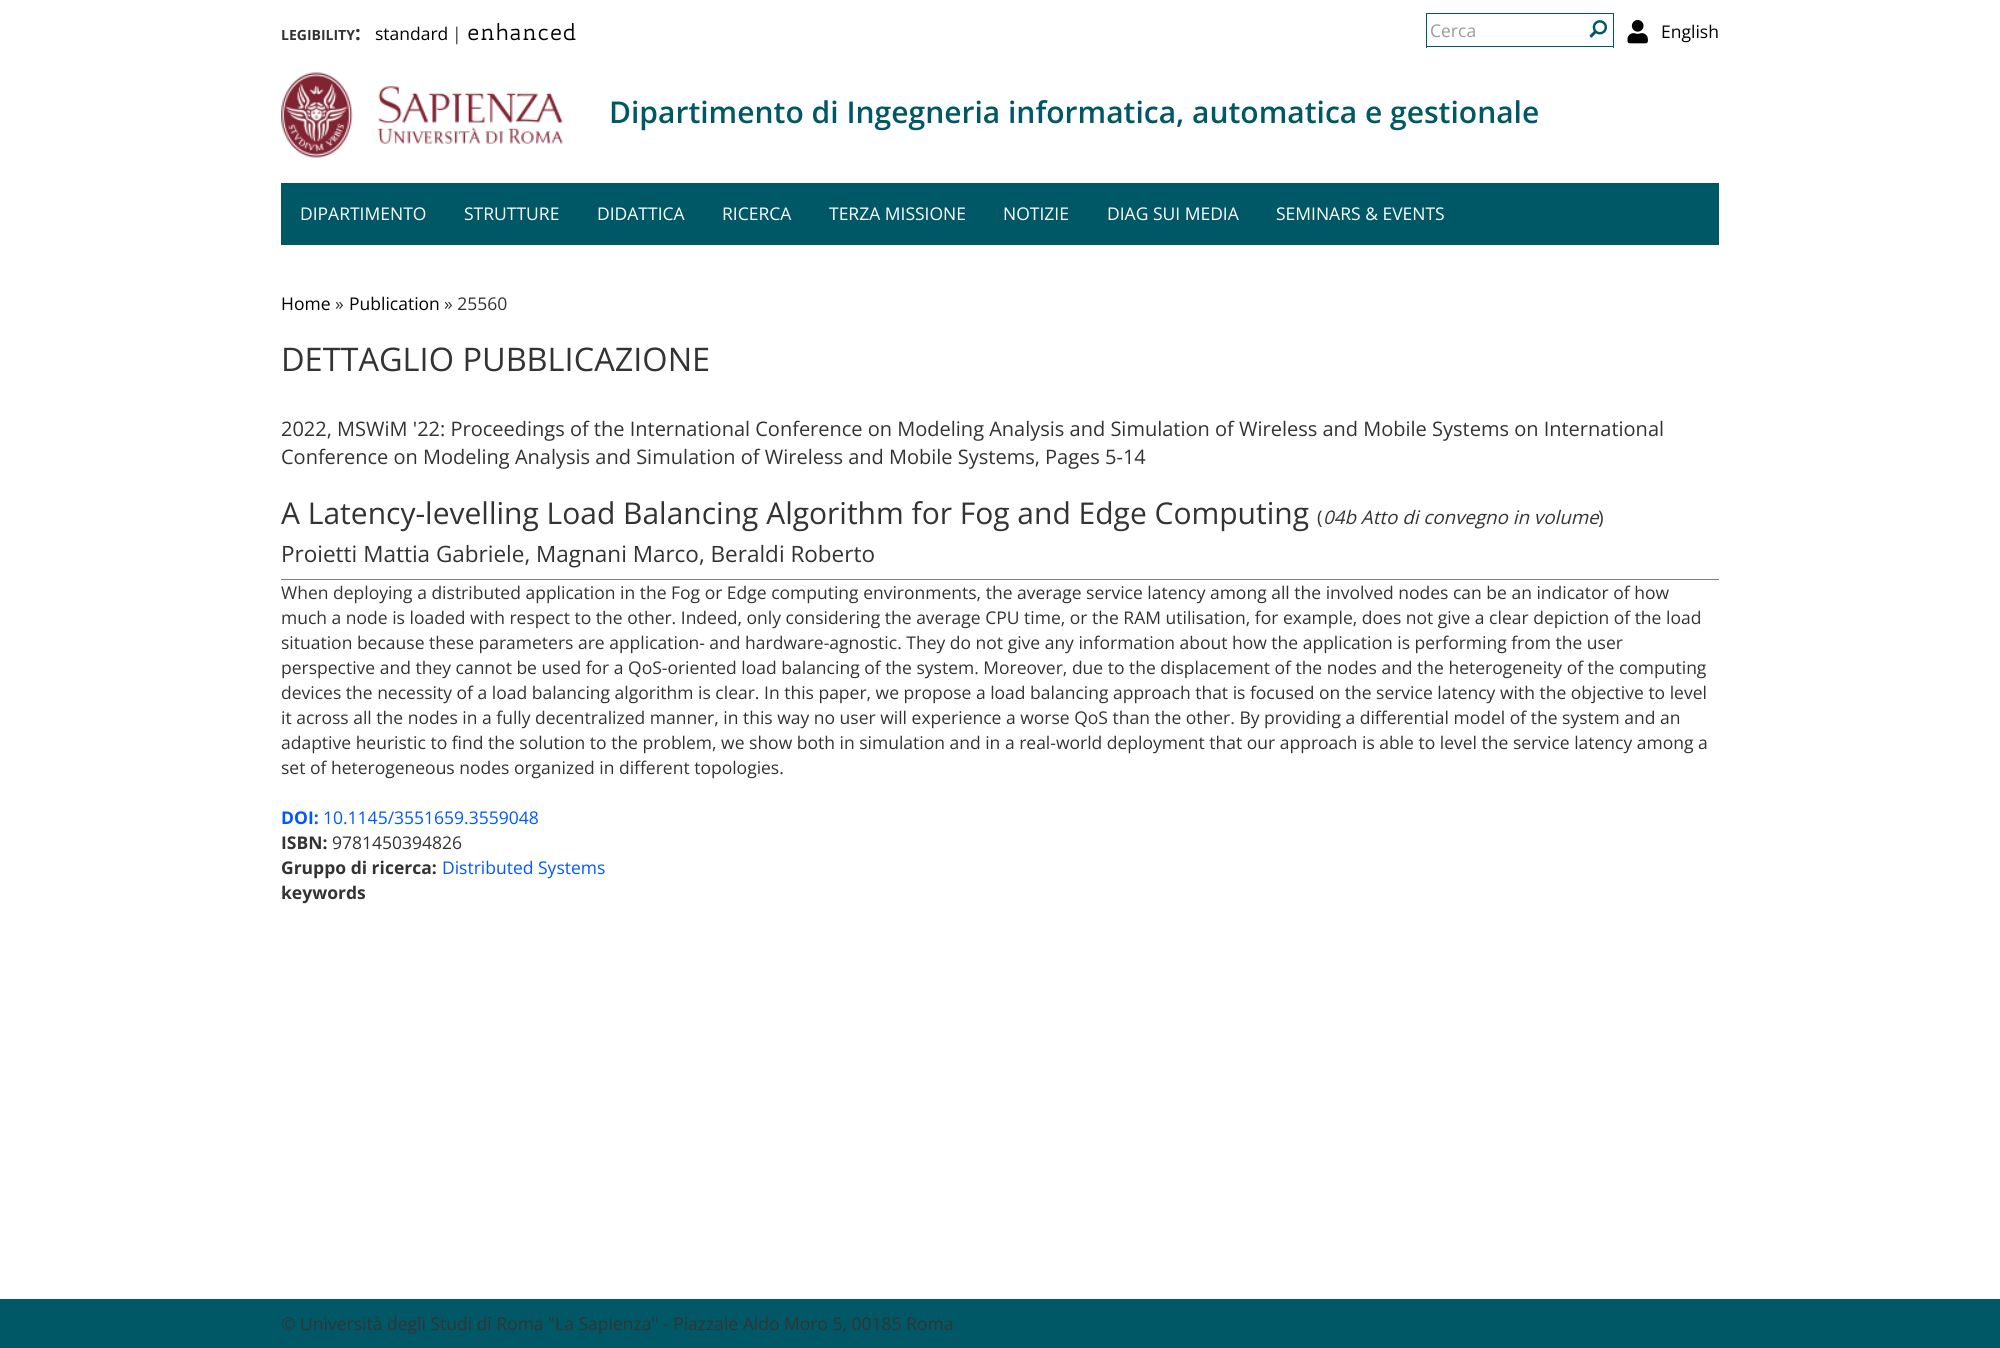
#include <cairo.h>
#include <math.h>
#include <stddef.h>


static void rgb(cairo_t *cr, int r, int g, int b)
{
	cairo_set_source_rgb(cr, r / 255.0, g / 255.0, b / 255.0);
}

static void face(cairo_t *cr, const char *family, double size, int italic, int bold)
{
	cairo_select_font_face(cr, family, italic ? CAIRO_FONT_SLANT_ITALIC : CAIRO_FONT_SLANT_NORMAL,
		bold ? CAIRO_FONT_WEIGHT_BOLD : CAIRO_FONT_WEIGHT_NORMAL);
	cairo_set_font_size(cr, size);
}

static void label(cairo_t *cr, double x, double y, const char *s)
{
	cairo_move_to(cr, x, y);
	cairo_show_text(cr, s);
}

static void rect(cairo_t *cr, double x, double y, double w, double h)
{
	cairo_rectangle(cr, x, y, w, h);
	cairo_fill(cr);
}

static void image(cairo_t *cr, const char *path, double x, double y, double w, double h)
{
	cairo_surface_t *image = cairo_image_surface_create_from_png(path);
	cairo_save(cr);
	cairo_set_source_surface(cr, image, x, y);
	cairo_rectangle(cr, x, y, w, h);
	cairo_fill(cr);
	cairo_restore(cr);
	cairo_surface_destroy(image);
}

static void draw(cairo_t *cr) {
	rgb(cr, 255, 255, 255);
	cairo_paint(cr);
	face(cr, "Open Sans", 14, 0, 1);
	rgb(cr, 51, 51, 51);
	label(cr, 281, 40, "LEGIBILITY");
	face(cr, "Open Sans", 20, 0, 1);
	label(cr, 355, 40, ":");
	face(cr, "Open Sans", 17.5, 0, 0);
	rgb(cr, 0, 0, 0);
	label(cr, 375, 40, "standard");
	rgb(cr, 51, 51, 51);
	label(cr, 452, 40, "|");
	face(cr, "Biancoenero", 22.75, 0, 0);
	rgb(cr, 0, 0, 0);
	label(cr, 467, 40, "enhanced");
	rgb(cr, 0, 88, 102);
	rect(cr, 1426, 13, 188, 1);
	rect(cr, 1426, 46, 158, 1);
	rect(cr, 1426, 13, 1, 35);
	face(cr, "Open Sans", 17.5, 0, 0);
	rgb(cr, 153, 153, 153);
	label(cr, 1430, 37, "Cerca");
	rgb(cr, 0, 88, 102);
	rect(cr, 1613, 13, 1, 35);
	rect(cr, 1583, 46, 31, 1);
	image(cr, "image0.png", 1589, 20, 18, 18);
	image(cr, "image1.png", 1627, 20, 21, 24);
	rgb(cr, 0, 0, 0);
	label(cr, 1661, 38, "English");
	image(cr, "image2.png", 281, 72, 282, 86);
	face(cr, "Open Sans SemiBold", 30, 0, 0);
	rgb(cr, 0, 88, 102);
	label(cr, 609, 123, "Dipartimento di Ingegneria informatica, automatica e gestionale");
	rect(cr, 281, 183, 1438, 62);
	face(cr, "Open Sans", 17.5, 0, 0);
	rgb(cr, 255, 255, 255);
	label(cr, 300, 220, "DIPARTIMENTO");
	label(cr, 464, 220, "STRUTTURE");
	label(cr, 597, 220, "DIDATTICA");
	label(cr, 722, 220, "RICERCA");
	label(cr, 829, 220, "TERZA MISSIONE");
	label(cr, 1003, 220, "NOTIZIE");
	label(cr, 1107, 220, "DIAG SUI MEDIA");
	label(cr, 1276, 220, "SEMINARS & EVENTS");
	rgb(cr, 0, 0, 0);
	label(cr, 281, 310, "Home");
	rgb(cr, 51, 51, 51);
	label(cr, 335, 310, "»");
	rgb(cr, 0, 0, 0);
	label(cr, 349, 310, "Publication");
	rgb(cr, 51, 51, 51);
	label(cr, 444, 310, "» 25560");
	face(cr, "Open Sans", 32.5, 0, 0);
	label(cr, 281, 371, "DETTAGLIO PUBBLICAZIONE");
	face(cr, "Open Sans", 20, 0, 0);
	label(cr, 281, 436, "2022, MSWiM '22: Proceedings of the International Conference on Modeling Analysis and Simulation of Wireless and Mobile Systems on International");
	label(cr, 281, 464, "Conference on Modeling Analysis and Simulation of Wireless and Mobile Systems, Pages 5-14");
	face(cr, "Open Sans", 30, 0, 0);
	label(cr, 281, 524, "A Latency-levelling Load Balancing Algorithm for Fog and Edge Computing");
	face(cr, "Open Sans", 18.75, 0, 0);
	label(cr, 1317, 524, "(");
	face(cr, "Open Sans", 18.75, 1, 0);
	label(cr, 1323, 524, "04b Atto di convegno in volume");
	face(cr, "Open Sans", 18.75, 0, 0);
	label(cr, 1598, 524, ")");
	rgb(cr, 128, 128, 128);
	rect(cr, 281, 579, 1438, 1);
	face(cr, "Open Sans", 22.5, 0, 0);
	rgb(cr, 51, 51, 51);
	label(cr, 281, 562, "Proietti Mattia Gabriele, Magnani Marco, Beraldi Roberto");
	face(cr, "Open Sans", 17.5, 0, 0);
	label(cr, 281, 599, "When deploying a distributed application in the Fog or Edge computing environments, the average service latency among all the involved nodes can be an indicator of how");
	label(cr, 281, 624, "much a node is loaded with respect to the other. Indeed, only considering the average CPU time, or the RAM utilisation, for example, does not give a clear depiction of the load");
	label(cr, 281, 649, "situation because these parameters are application- and hardware-agnostic. They do not give any information about how the application is performing from the user");
	label(cr, 281, 674, "perspective and they cannot be used for a QoS-oriented load balancing of the system. Moreover, due to the displacement of the nodes and the heterogeneity of the computing");
	label(cr, 281, 699, "devices the necessity of a load balancing algorithm is clear. In this paper, we propose a load balancing approach that is focused on the service latency with the objective to level");
	label(cr, 281, 724, "it across all the nodes in a fully decentralized manner, in this way no user will experience a worse QoS than the other. By providing a differential model of the system and an");
	label(cr, 281, 749, "adaptive heuristic to find the solution to the problem, we show both in simulation and in a real-world deployment that our approach is able to level the service latency among a");
	label(cr, 281, 774, "set of heterogeneous nodes organized in different topologies.");
	face(cr, "Open Sans", 17.5, 0, 1);
	rgb(cr, 0, 88, 255);
	label(cr, 281, 824, "DOI:");
	face(cr, "Open Sans", 17.5, 0, 0);
	label(cr, 323, 824, "10.1145/3551659.3559048");
	face(cr, "Open Sans", 17.5, 0, 1);
	rgb(cr, 51, 51, 51);
	label(cr, 281, 849, "ISBN:");
	face(cr, "Open Sans", 17.5, 0, 0);
	label(cr, 332, 849, "9781450394826");
	face(cr, "Open Sans", 17.5, 0, 1);
	label(cr, 281, 874, "Gruppo di ricerca:");
	face(cr, "Open Sans", 17.5, 0, 0);
	rgb(cr, 0, 88, 255);
	label(cr, 442, 874, "Distributed Systems");
	face(cr, "Open Sans", 17.5, 0, 1);
	rgb(cr, 51, 51, 51);
	label(cr, 281, 899, "keywords");
	rgb(cr, 0, 88, 102);
	rect(cr, 0, 1299, 2000, 49);
	face(cr, "Open Sans", 17.5, 0, 0);
	rgb(cr, 51, 51, 51);
	label(cr, 281, 1330, "© Università degli Studi di Roma \"La Sapienza\" - Piazzale Aldo Moro 5, 00185 Roma");
}

int main(void) {
	cairo_surface_t *surface = cairo_image_surface_create(CAIRO_FORMAT_RGB24, 2000, 1348);
	cairo_t *cr = cairo_create(surface);
	cairo_font_options_t *options = cairo_font_options_create();
	cairo_font_options_set_hint_metrics(options, CAIRO_HINT_METRICS_OFF);
	cairo_font_options_set_hint_style(options, CAIRO_HINT_STYLE_NONE);
	cairo_set_font_options(cr, options);
	cairo_set_miter_limit(cr, 4);
	draw(cr);
	cairo_surface_write_to_png(surface, "render.png");
	cairo_font_options_destroy(options);
	cairo_destroy(cr);
	cairo_surface_destroy(surface);
	return 0;
}
